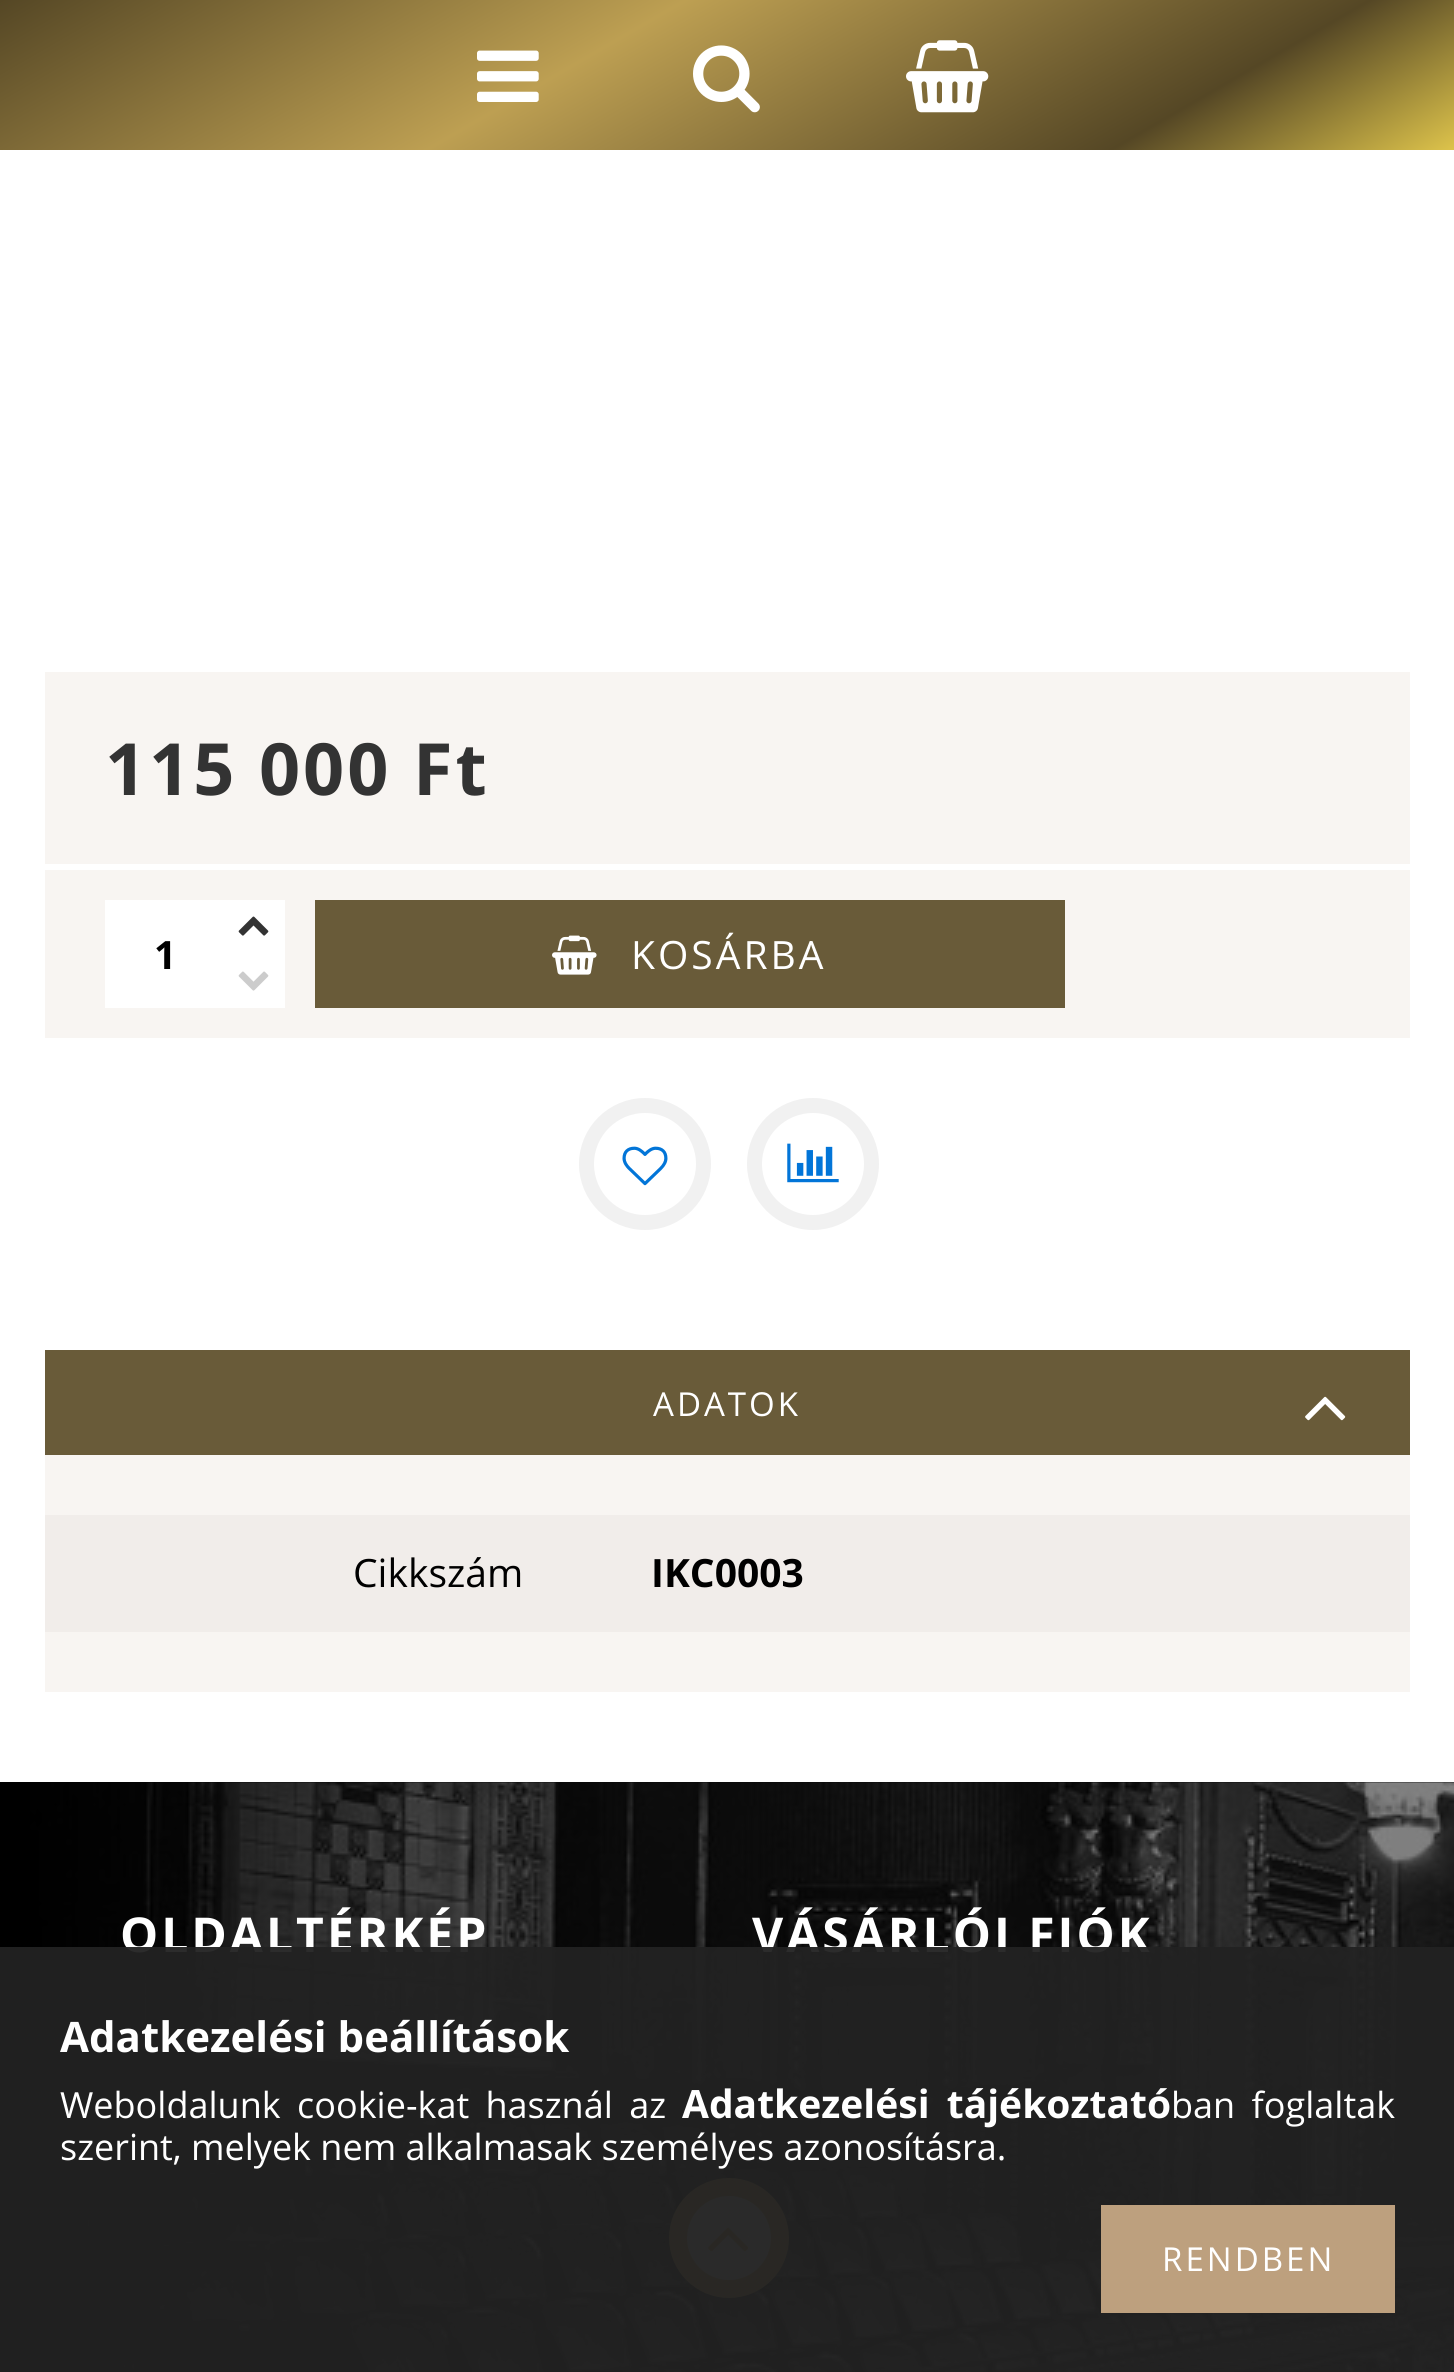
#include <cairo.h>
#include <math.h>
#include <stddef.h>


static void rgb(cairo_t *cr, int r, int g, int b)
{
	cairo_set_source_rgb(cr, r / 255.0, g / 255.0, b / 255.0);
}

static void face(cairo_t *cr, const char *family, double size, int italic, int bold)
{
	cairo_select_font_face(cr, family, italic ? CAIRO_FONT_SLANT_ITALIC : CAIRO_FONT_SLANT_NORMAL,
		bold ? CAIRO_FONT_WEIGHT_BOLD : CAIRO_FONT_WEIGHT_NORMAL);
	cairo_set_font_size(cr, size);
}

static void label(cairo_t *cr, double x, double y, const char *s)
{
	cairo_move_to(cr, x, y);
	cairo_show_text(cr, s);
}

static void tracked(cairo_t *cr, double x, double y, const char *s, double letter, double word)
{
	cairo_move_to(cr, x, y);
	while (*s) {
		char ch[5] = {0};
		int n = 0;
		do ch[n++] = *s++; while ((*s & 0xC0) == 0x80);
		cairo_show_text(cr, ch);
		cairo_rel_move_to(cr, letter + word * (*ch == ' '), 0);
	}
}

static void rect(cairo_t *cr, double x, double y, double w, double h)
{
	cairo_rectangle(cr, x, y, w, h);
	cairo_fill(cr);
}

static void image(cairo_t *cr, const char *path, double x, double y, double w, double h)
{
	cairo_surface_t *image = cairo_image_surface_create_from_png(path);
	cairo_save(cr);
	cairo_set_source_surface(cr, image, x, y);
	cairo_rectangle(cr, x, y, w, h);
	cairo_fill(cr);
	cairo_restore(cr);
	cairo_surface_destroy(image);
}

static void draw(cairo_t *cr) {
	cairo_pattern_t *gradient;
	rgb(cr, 255, 255, 255);
	cairo_paint(cr);
	gradient = cairo_pattern_create_linear(513, -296, 942, 446);
	cairo_pattern_add_color_stop_rgba(gradient, 0, 0.333, 0.278, 0.145, 1);
	cairo_pattern_add_color_stop_rgba(gradient, 0.4, 0.741, 0.624, 0.322, 1);
	cairo_pattern_add_color_stop_rgba(gradient, 0.8, 0.333, 0.278, 0.145, 1);
	cairo_pattern_add_color_stop_rgba(gradient, 1, 0.867, 0.765, 0.294, 1);
	cairo_set_source(cr, gradient);
	cairo_pattern_destroy(gradient);
	rect(cr, 0, 0, 1454, 150);
	image(cr, "image0.png", 477, 50, 62, 52);
	image(cr, "image1.png", 693, 45, 67, 68);
	image(cr, "image2.png", 906, 40, 83, 73);
	rgb(cr, 248, 245, 242);
	rect(cr, 45, 672, 1365, 192);
	face(cr, "Open Sans", 72, 0, 1);
	rgb(cr, 51, 51, 51);
	tracked(cr, 105, 795, "115 000 Ft", 3, 0);
	rgb(cr, 248, 245, 242);
	rect(cr, 45, 870, 1365, 168);
	rgb(cr, 255, 255, 255);
	rect(cr, 105, 900, 120, 108);
	face(cr, "Open Sans", 39, 0, 1);
	rgb(cr, 0, 0, 0);
	label(cr, 154, 969, "1");
	rgb(cr, 255, 255, 255);
	rect(cr, 225, 900, 60, 108);
	image(cr, "image3.png", 238, 916, 31, 20);
	image(cr, "image4.png", 238, 971, 31, 20);
	rgb(cr, 105, 91, 57);
	rect(cr, 315, 900, 750, 108);
	image(cr, "image5.png", 552, 935, 45, 40);
	face(cr, "Open Sans", 39, 0, 0);
	rgb(cr, 255, 255, 255);
	tracked(cr, 631, 969, "KOSÁRBA", 3, 0);
	cairo_new_path(cr);
	cairo_arc(cr, 645, 1164, 58.5, 0, 2 * M_PI);
	rgb(cr, 241, 241, 241);
	cairo_set_line_width(cr, 15);
	cairo_stroke(cr);
	image(cr, "image6.png", 622, 1146, 46, 40);
	cairo_arc(cr, 813, 1164, 58.5, 0, 2 * M_PI);
	cairo_stroke(cr);
	image(cr, "image7.png", 787, 1143, 52, 40);
	rgb(cr, 105, 91, 57);
	rect(cr, 45, 1350, 1365, 105);
	face(cr, "Open Sans", 33, 0, 0);
	rgb(cr, 255, 255, 255);
	tracked(cr, 653, 1416, "ADATOK", 3, 0);
	image(cr, "image8.png", 1305, 1396, 41, 25);
	rgb(cr, 248, 245, 242);
	rect(cr, 45, 1455, 1365, 237);
	rgb(cr, 241, 237, 234);
	rect(cr, 45, 1515, 1365, 117);
	face(cr, "Open Sans", 39, 0, 0);
	rgb(cr, 0, 0, 0);
	label(cr, 353, 1587, "Cikkszám");
	face(cr, "Open Sans", 39, 0, 1);
	label(cr, 651, 1587, "IKC0003");
	image(cr, "image9.png", 0, 1782, 1454, 590);
	face(cr, "Open Sans", 48, 0, 1);
	rgb(cr, 255, 255, 255);
	tracked(cr, 120, 1952, "OLDALTÉRKÉP", 3, 0);
	tracked(cr, 752, 1952, "VÁSÁRLÓI FIÓK", 3, 0);
	cairo_set_source_rgba(cr, 1, 1, 1, 0.8);
	cairo_new_path(cr);
	cairo_arc(cr, 729, 2238, 51, 0, 2 * M_PI);
	cairo_fill_preserve(cr);
	rgb(cr, 189, 159, 82);
	cairo_set_line_width(cr, 18);
	cairo_stroke(cr);
	image(cr, "image10.png", 708, 2227, 41, 25);
	cairo_set_source_rgba(cr, 0.133, 0.133, 0.133, 0.95);
	rect(cr, 0, 1947, 1454, 425);
	face(cr, "Open Sans", 42, 0, 1);
	rgb(cr, 255, 255, 255);
	label(cr, 60, 2052, "Adatkezelési beállítások");
	face(cr, "Open Sans", 36, 0, 0);
	tracked(cr, 60, 2118, "Weboldalunk cookie-kat használ az", 0, 7);
	face(cr, "Open Sans", 39, 0, 1);
	tracked(cr, 682, 2118, "Adatkezelési tájékoztató", 0, 7);
	face(cr, "Open Sans", 36, 0, 0);
	tracked(cr, 1171, 2118, "ban foglaltak", 0, 7);
	label(cr, 60, 2160, "szerint, melyek nem alkalmasak személyes azonosításra.");
	rgb(cr, 189, 160, 126);
	rect(cr, 1101, 2205, 294, 108);
	face(cr, "Open Sans", 33, 0, 0);
	rgb(cr, 255, 255, 255);
	tracked(cr, 1162, 2271, "RENDBEN", 3, 0);
}

int main(void) {
	cairo_surface_t *surface = cairo_image_surface_create(CAIRO_FORMAT_RGB24, 1454, 2372);
	cairo_t *cr = cairo_create(surface);
	cairo_font_options_t *options = cairo_font_options_create();
	cairo_font_options_set_hint_metrics(options, CAIRO_HINT_METRICS_OFF);
	cairo_font_options_set_hint_style(options, CAIRO_HINT_STYLE_NONE);
	cairo_set_font_options(cr, options);
	cairo_set_miter_limit(cr, 4);
	draw(cr);
	cairo_surface_write_to_png(surface, "render.png");
	cairo_font_options_destroy(options);
	cairo_destroy(cr);
	cairo_surface_destroy(surface);
	return 0;
}
